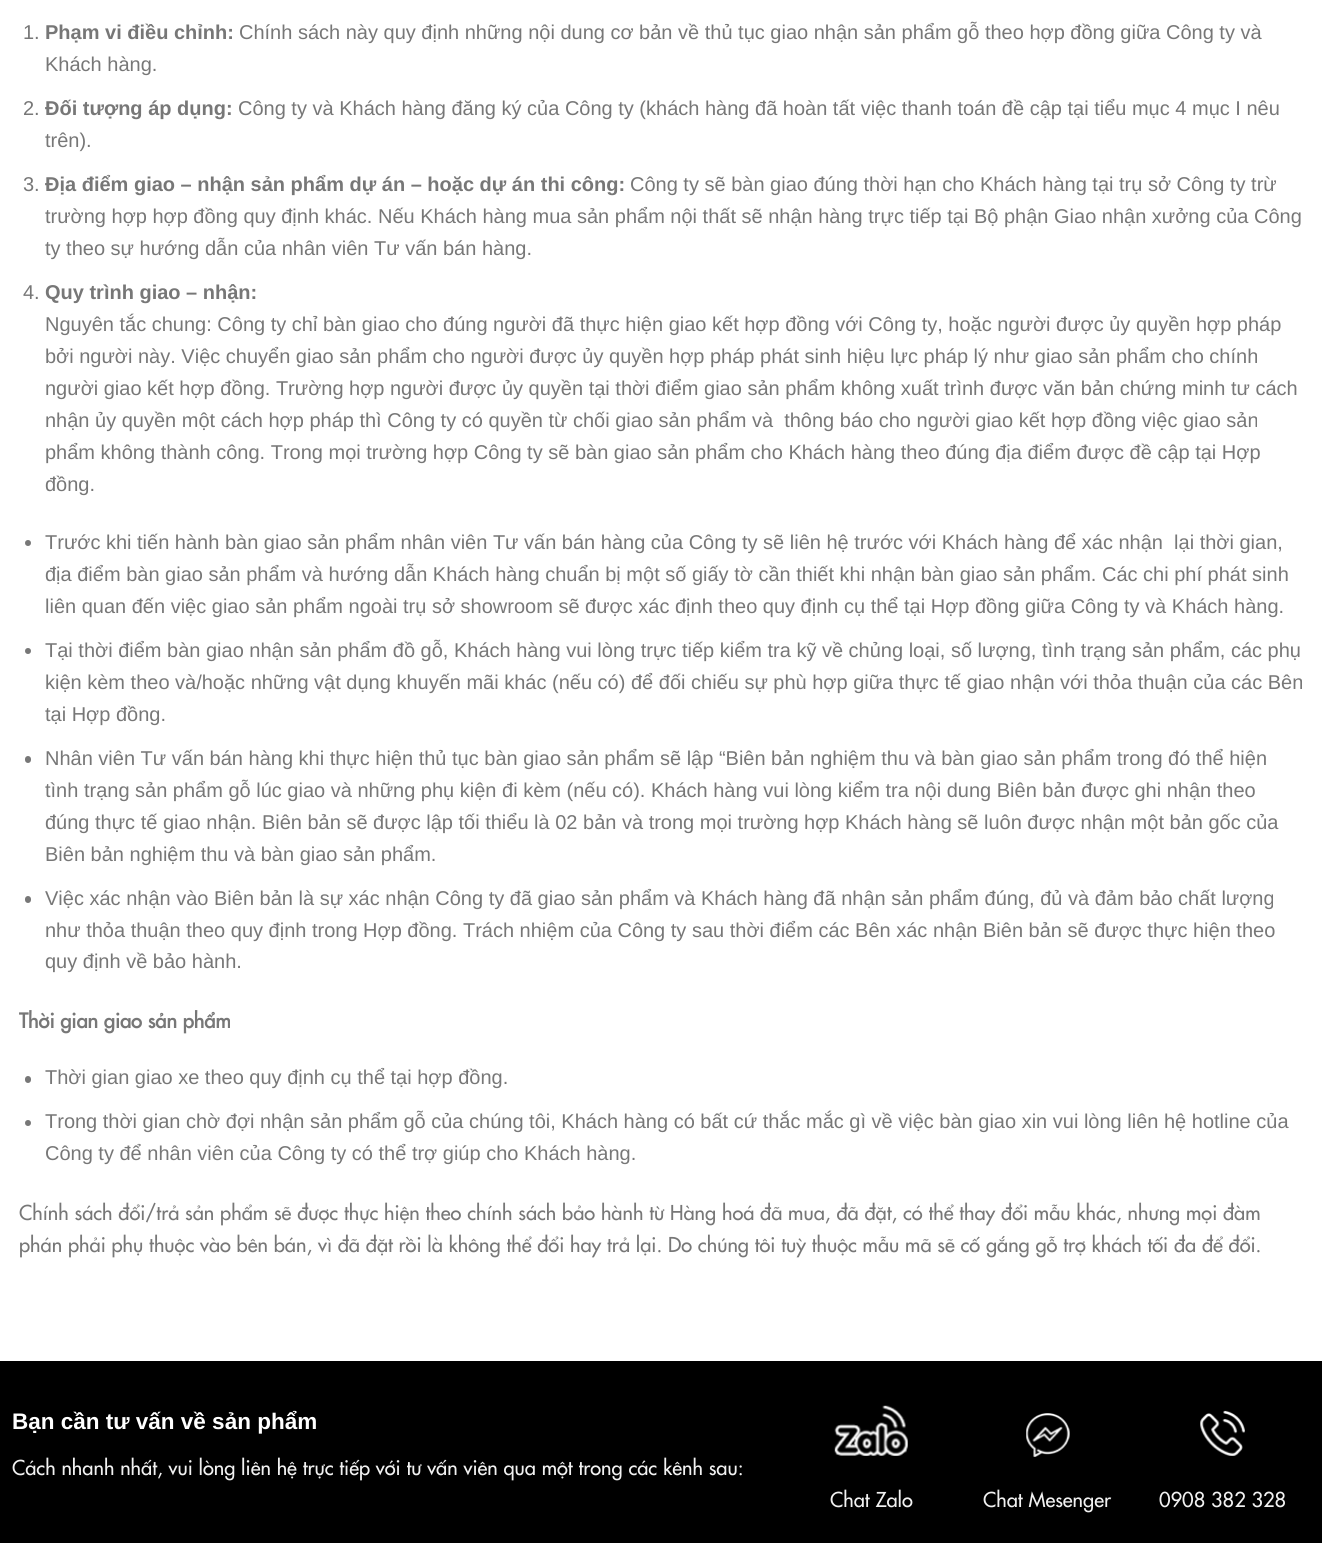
#include <cairo.h>
#include <math.h>
#include <stddef.h>


static void rgb(cairo_t *cr, int r, int g, int b)
{
	cairo_set_source_rgb(cr, r / 255.0, g / 255.0, b / 255.0);
}

static void face(cairo_t *cr, const char *family, double size, int italic, int bold)
{
	cairo_select_font_face(cr, family, italic ? CAIRO_FONT_SLANT_ITALIC : CAIRO_FONT_SLANT_NORMAL,
		bold ? CAIRO_FONT_WEIGHT_BOLD : CAIRO_FONT_WEIGHT_NORMAL);
	cairo_set_font_size(cr, size);
}

static void label(cairo_t *cr, double x, double y, const char *s)
{
	cairo_move_to(cr, x, y);
	cairo_show_text(cr, s);
}

static void rect(cairo_t *cr, double x, double y, double w, double h)
{
	cairo_rectangle(cr, x, y, w, h);
	cairo_fill(cr);
}

static void rrect(cairo_t *cr, double x, double y, double w, double h, double r)
{
	cairo_new_sub_path(cr);
	cairo_arc(cr, x + w - r, y + h - r, r, 0, M_PI / 2);
	cairo_arc(cr, x + r, y + h - r, r, M_PI / 2, M_PI);
	cairo_arc(cr, x + r, y + r, r, M_PI, 1.5 * M_PI);
	cairo_arc(cr, x + w - r, y + r, r, 1.5 * M_PI, 2 * M_PI);
	cairo_close_path(cr);
}

static void image(cairo_t *cr, const char *path, double x, double y, double w, double h)
{
	cairo_surface_t *image = cairo_image_surface_create_from_png(path);
	cairo_save(cr);
	cairo_set_source_surface(cr, image, x, y);
	cairo_rectangle(cr, x, y, w, h);
	cairo_fill(cr);
	cairo_restore(cr);
	cairo_surface_destroy(image);
}

static void draw(cairo_t *cr) {
	rgb(cr, 255, 255, 255);
	cairo_paint(cr);
	face(cr, "Liberation Sans", 20, 0, 0);
	rgb(cr, 119, 119, 119);
	label(cr, 23, 39, "1.");
	face(cr, "Liberation Sans", 20, 0, 1);
	label(cr, 45, 39, "Phạm vi điều chỉnh:");
	face(cr, "Liberation Sans", 20, 0, 0);
	label(cr, 239, 39, "Chính sách này quy định những nội dung cơ bản về thủ tục giao nhận sản phẩm gỗ theo hợp đồng giữa Công ty và");
	label(cr, 45, 71, "Khách hàng.");
	label(cr, 23, 115, "2.");
	face(cr, "Liberation Sans", 20, 0, 1);
	label(cr, 45, 115, "Đối tượng áp dụng:");
	face(cr, "Liberation Sans", 20, 0, 0);
	label(cr, 238, 115, "Công ty và Khách hàng đăng ký của Công ty (khách hàng đã hoàn tất việc thanh toán đề cập tại tiểu mục 4 mục I nêu");
	label(cr, 45, 147, "trên).");
	label(cr, 23, 191, "3.");
	face(cr, "Liberation Sans", 20, 0, 1);
	label(cr, 45, 191, "Địa điểm giao – nhận sản phẩm dự án – hoặc dự án thi công:");
	face(cr, "Liberation Sans", 20, 0, 0);
	label(cr, 630, 191, "Công ty sẽ bàn giao đúng thời hạn cho Khách hàng tại trụ sở Công ty trừ");
	label(cr, 45, 223, "trường hợp hợp đồng quy định khác. Nếu Khách hàng mua sản phẩm nội thất sẽ nhận hàng trực tiếp tại Bộ phận Giao nhận xưởng của Công");
	label(cr, 45, 255, "ty theo sự hướng dẫn của nhân viên Tư vấn bán hàng.");
	label(cr, 23, 299, "4.");
	face(cr, "Liberation Sans", 20, 0, 1);
	label(cr, 45, 299, "Quy trình giao – nhận:");
	face(cr, "Liberation Sans", 20, 0, 0);
	label(cr, 45, 331, "Nguyên tắc chung: Công ty chỉ bàn giao cho đúng người đã thực hiện giao kết hợp đồng với Công ty, hoặc người được ủy quyền hợp pháp");
	label(cr, 45, 363, "bởi người này. Việc chuyển giao sản phẩm cho người được ủy quyền hợp pháp phát sinh hiệu lực pháp lý như giao sản phẩm cho chính");
	label(cr, 45, 395, "người giao kết hợp đồng. Trường hợp người được ủy quyền tại thời điểm giao sản phẩm không xuất trình được văn bản chứng minh tư cách");
	label(cr, 45, 427, "nhận ủy quyền một cách hợp pháp thì Công ty có quyền từ chối giao sản phẩm và  thông báo cho người giao kết hợp đồng việc giao sản");
	label(cr, 45, 459, "phẩm không thành công. Trong mọi trường hợp Công ty sẽ bàn giao sản phẩm cho Khách hàng theo đúng địa điểm được đề cập tại Hợp");
	label(cr, 45, 491, "đồng.");
	cairo_new_path(cr);
	cairo_arc(cr, 28, 543, 3, 0, 2 * M_PI);
	cairo_fill(cr);
	label(cr, 45, 549, "Trước khi tiến hành bàn giao sản phẩm nhân viên Tư vấn bán hàng của Công ty sẽ liên hệ trước với Khách hàng để xác nhận  lại thời gian,");
	label(cr, 45, 581, "địa điểm bàn giao sản phẩm và hướng dẫn Khách hàng chuẩn bị một số giấy tờ cần thiết khi nhận bàn giao sản phẩm. Các chi phí phát sinh");
	label(cr, 45, 613, "liên quan đến việc giao sản phẩm ngoài trụ sở showroom sẽ được xác định theo quy định cụ thể tại Hợp đồng giữa Công ty và Khách hàng.");
	cairo_new_path(cr);
	cairo_arc(cr, 28, 651, 3, 0, 2 * M_PI);
	cairo_fill(cr);
	label(cr, 45, 657, "Tại thời điểm bàn giao nhận sản phẩm đồ gỗ, Khách hàng vui lòng trực tiếp kiểm tra kỹ về chủng loại, số lượng, tình trạng sản phẩm, các phụ");
	label(cr, 45, 689, "kiện kèm theo và/hoặc những vật dụng khuyến mãi khác (nếu có) để đối chiếu sự phù hợp giữa thực tế giao nhận với thỏa thuận của các Bên");
	label(cr, 45, 721, "tại Hợp đồng.");
	rrect(cr, 25, 756, 6, 7, 3);
	cairo_fill(cr);
	label(cr, 45, 765, "Nhân viên Tư vấn bán hàng khi thực hiện thủ tục bàn giao sản phẩm sẽ lập “Biên bản nghiệm thu và bàn giao sản phẩm trong đó thể hiện");
	label(cr, 45, 797, "tình trạng sản phẩm gỗ lúc giao và những phụ kiện đi kèm (nếu có). Khách hàng vui lòng kiểm tra nội dung Biên bản được ghi nhận theo");
	label(cr, 45, 829, "đúng thực tế giao nhận. Biên bản sẽ được lập tối thiểu là 02 bản và trong mọi trường hợp Khách hàng sẽ luôn được nhận một bản gốc của");
	label(cr, 45, 861, "Biên bản nghiệm thu và bàn giao sản phẩm.");
	rrect(cr, 25, 896, 6, 7, 3);
	cairo_fill(cr);
	label(cr, 45, 905, "Việc xác nhận vào Biên bản là sự xác nhận Công ty đã giao sản phẩm và Khách hàng đã nhận sản phẩm đúng, đủ và đảm bảo chất lượng");
	label(cr, 45, 937, "như thỏa thuận theo quy định trong Hợp đồng. Trách nhiệm của Công ty sau thời điểm các Bên xác nhận Biên bản sẽ được thực hiện theo");
	label(cr, 45, 968, "quy định về bảo hành.");
	face(cr, "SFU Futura", 20, 0, 1);
	label(cr, 19, 1028, "Thời gian giao sản phẩm");
	rrect(cr, 25, 1076, 6, 7, 3);
	cairo_fill(cr);
	face(cr, "Liberation Sans", 20, 0, 0);
	label(cr, 45, 1084, "Thời gian giao xe theo quy định cụ thể tại hợp đồng.");
	cairo_new_path(cr);
	cairo_arc(cr, 28, 1123, 3, 0, 2 * M_PI);
	cairo_fill(cr);
	label(cr, 45, 1128, "Trong thời gian chờ đợi nhận sản phẩm gỗ của chúng tôi, Khách hàng có bất cứ thắc mắc gì về việc bàn giao xin vui lòng liên hệ hotline của");
	label(cr, 45, 1160, "Công ty để nhân viên của Công ty có thể trợ giúp cho Khách hàng.");
	face(cr, "SFU Futura", 20, 0, 0);
	label(cr, 19, 1220, "Chính sách đổi/trả sản phẩm sẽ được thực hiện theo chính sách bảo hành từ Hàng hoá đã mua, đã đặt, có thể thay đổi mẫu khác, nhưng mọi đàm");
	label(cr, 19, 1252, "phán phải phụ thuộc vào bên bán, vì đã đặt rồi là không thể đổi hay trả lại. Do chúng tôi tuỳ thuộc mẫu mã sẽ cố gắng gỗ trợ khách tối đa để đổi.");
	rgb(cr, 0, 0, 0);
	rect(cr, 0, 1361, 1322, 182);
	face(cr, "Liberation Sans", 22.5, 0, 1);
	rgb(cr, 255, 255, 255);
	label(cr, 12, 1429, "Bạn cần tư vấn về sản phẩm");
	face(cr, "SFU Futura", 20, 0, 0);
	rgb(cr, 241, 241, 241);
	label(cr, 12, 1475, "Cách nhanh nhất, vui lòng liên hệ trực tiếp với tư vấn viên qua một trong các kênh sau:");
	image(cr, "image0.png", 834, 1405, 74, 51);
	label(cr, 830, 1507, "Chat Zalo");
	image(cr, "image1.png", 1026, 1413, 44, 44);
	label(cr, 983, 1507, "Chat Mesenger");
	image(cr, "image2.png", 1200, 1410, 45, 46);
	label(cr, 1159, 1507, "0908 382 328");
}

int main(void) {
	cairo_surface_t *surface = cairo_image_surface_create(CAIRO_FORMAT_RGB24, 1322, 1543);
	cairo_t *cr = cairo_create(surface);
	cairo_font_options_t *options = cairo_font_options_create();
	cairo_font_options_set_hint_metrics(options, CAIRO_HINT_METRICS_OFF);
	cairo_font_options_set_hint_style(options, CAIRO_HINT_STYLE_NONE);
	cairo_set_font_options(cr, options);
	cairo_set_miter_limit(cr, 4);
	draw(cr);
	cairo_surface_write_to_png(surface, "render.png");
	cairo_font_options_destroy(options);
	cairo_destroy(cr);
	cairo_surface_destroy(surface);
	return 0;
}
